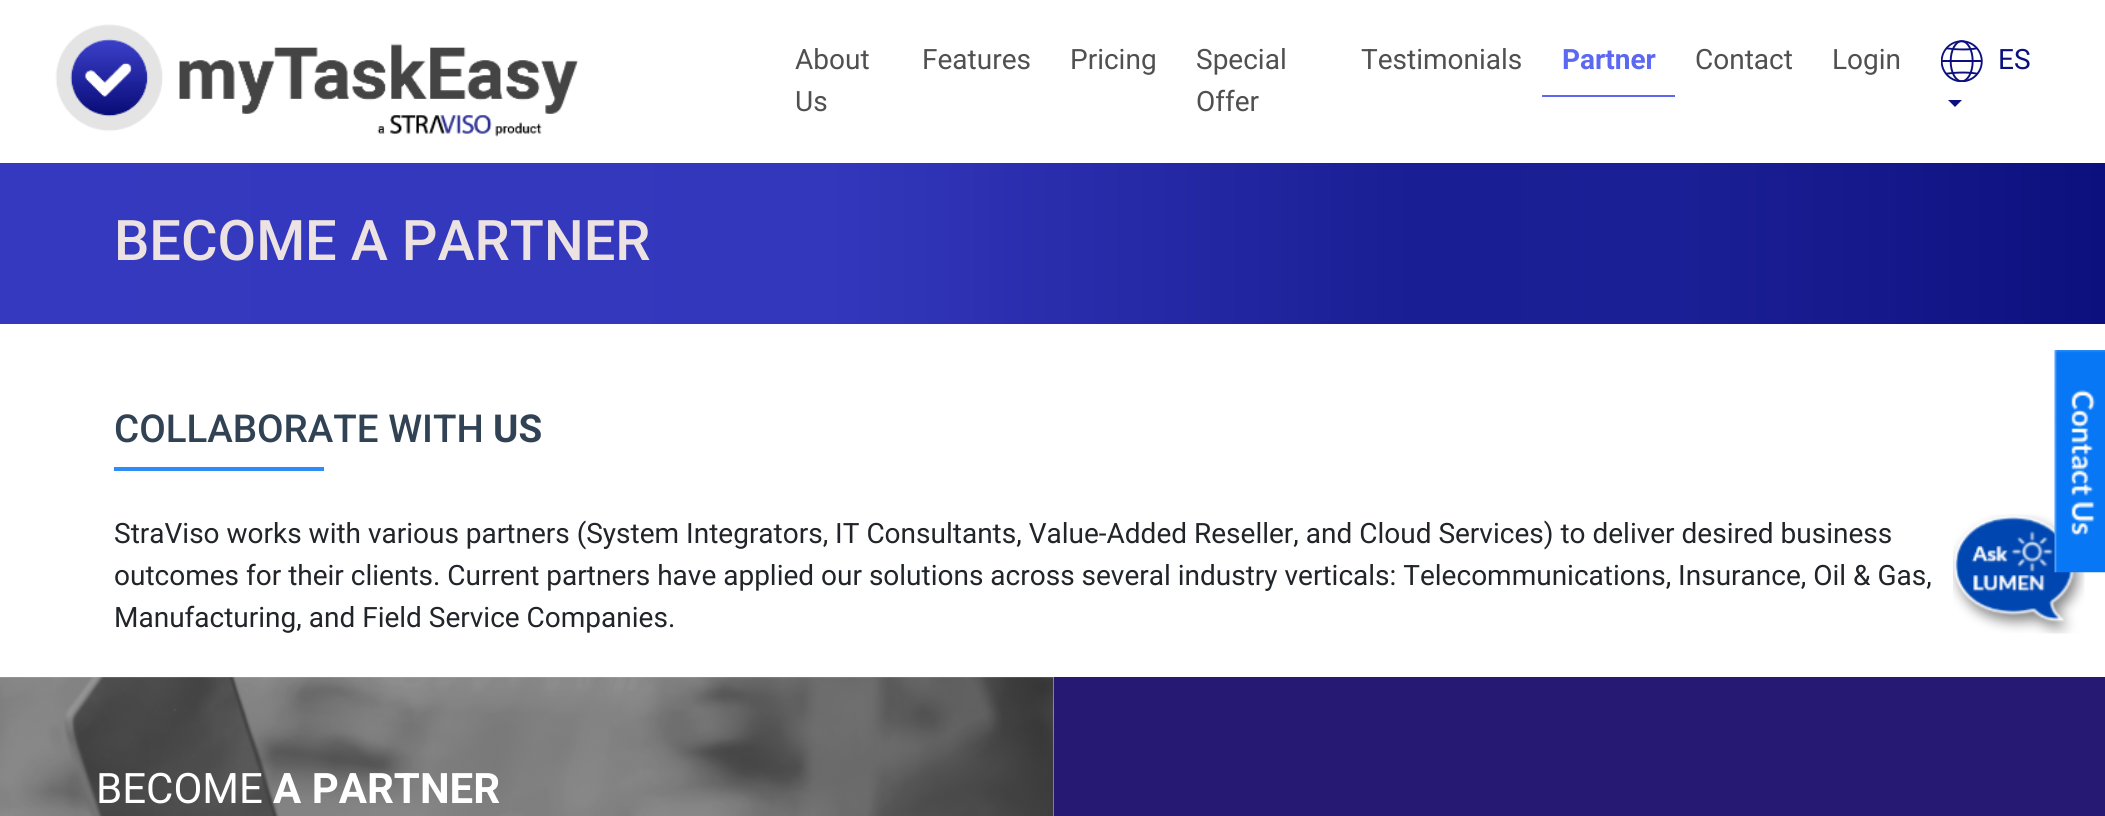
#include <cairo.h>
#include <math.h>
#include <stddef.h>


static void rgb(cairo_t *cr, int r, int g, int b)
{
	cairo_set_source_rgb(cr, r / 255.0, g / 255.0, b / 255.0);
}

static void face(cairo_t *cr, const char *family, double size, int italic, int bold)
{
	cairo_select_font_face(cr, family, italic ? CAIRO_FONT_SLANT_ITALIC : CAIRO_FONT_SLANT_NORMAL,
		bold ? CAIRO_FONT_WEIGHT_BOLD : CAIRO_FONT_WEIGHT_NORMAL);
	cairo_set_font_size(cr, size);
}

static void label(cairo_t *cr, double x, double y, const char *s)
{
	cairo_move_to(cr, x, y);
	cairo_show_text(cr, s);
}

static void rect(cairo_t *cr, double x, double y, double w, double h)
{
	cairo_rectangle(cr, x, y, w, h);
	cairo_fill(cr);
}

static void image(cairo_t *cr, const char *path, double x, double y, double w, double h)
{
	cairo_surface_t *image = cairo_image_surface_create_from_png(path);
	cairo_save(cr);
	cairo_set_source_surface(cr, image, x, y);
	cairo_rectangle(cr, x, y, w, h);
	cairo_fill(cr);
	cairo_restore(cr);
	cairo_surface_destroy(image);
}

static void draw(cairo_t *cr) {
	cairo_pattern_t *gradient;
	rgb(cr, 255, 255, 255);
	cairo_paint(cr);
	image(cr, "image0.png", 55, 24, 524, 113);
	face(cr, "Roboto", 28, 0, 0);
	rgb(cr, 80, 80, 80);
	label(cr, 795, 69, "About");
	label(cr, 795, 111, "Us");
	label(cr, 922, 69, "Features");
	label(cr, 1070, 69, "Pricing");
	label(cr, 1196, 69, "Special");
	label(cr, 1196, 111, "Offer");
	label(cr, 1361, 69, "Testimonials");
	rgb(cr, 92, 104, 242);
	rect(cr, 1542, 95, 133, 2);
	face(cr, "Roboto", 28, 0, 1);
	label(cr, 1562, 69, "Partner");
	face(cr, "Roboto", 28, 0, 0);
	rgb(cr, 80, 80, 80);
	label(cr, 1695, 69, "Contact");
	label(cr, 1832, 69, "Login");
	image(cr, "image1.png", 1941, 40, 42, 42);
	rgb(cr, 12, 16, 126);
	label(cr, 1998, 69, "ES");
	cairo_new_path(cr);
	cairo_move_to(cr, 1948, 100);
	cairo_line_to(cr, 1962, 100);
	cairo_line_to(cr, 1955, 107);
	cairo_close_path(cr);
	cairo_fill(cr);
	gradient = cairo_pattern_create_linear(0, 243, 2105, 243);
	cairo_pattern_add_color_stop_rgba(gradient, 0, 1, 1, 1, 1);
	cairo_pattern_add_color_stop_rgba(gradient, 0, 0.208, 0.224, 0.749, 1);
	cairo_pattern_add_color_stop_rgba(gradient, 0.39, 0.2, 0.216, 0.737, 1);
	cairo_pattern_add_color_stop_rgba(gradient, 0.67, 0.102, 0.118, 0.58, 1);
	cairo_pattern_add_color_stop_rgba(gradient, 0.8, 0.106, 0.122, 0.584, 1);
	cairo_pattern_add_color_stop_rgba(gradient, 1, 0.047, 0.063, 0.494, 1);
	cairo_pattern_add_color_stop_rgba(gradient, 1, 0.922, 0.922, 0.922, 1);
	cairo_pattern_add_color_stop_rgba(gradient, 1, 0.875, 0.875, 0.886, 1);
	cairo_set_source(cr, gradient);
	cairo_pattern_destroy(gradient);
	rect(cr, 0, 163, 2105, 161);
	face(cr, "Roboto Medium", 56, 0, 0);
	rgb(cr, 237, 226, 226);
	label(cr, 114, 260, "BECOME A PARTNER");
	face(cr, "Roboto Medium", 38.5, 0, 0);
	rgb(cr, 49, 66, 84);
	label(cr, 114, 442, "COLLABORATE WITH");
	face(cr, "Roboto", 38.5, 0, 1);
	label(cr, 493, 442, "US");
	rgb(cr, 46, 140, 246);
	rect(cr, 114, 467, 210, 4);
	face(cr, "Roboto", 28, 0, 0);
	rgb(cr, 33, 37, 41);
	label(cr, 114, 543, "StraViso works with various partners (System Integrators, IT Consultants, Value-Added Reseller, and Cloud Services) to deliver desired business");
	label(cr, 114, 585, "outcomes for their clients. Current partners have applied our solutions across several industry verticals: Telecommunications, Insurance, Oil & Gas,");
	label(cr, 114, 627, "Manufacturing, and Field Service Companies.");
	image(cr, "image3.png", 1953, 514, 132, 120);
	image(cr, "image2.png", 2054, 350, 51, 223);
	rgb(cr, 177, 175, 175);
	rect(cr, 0, 677, 1054, 139);
	image(cr, "image4.png", 0, 677, 1054, 139);
	face(cr, "Roboto", 42, 0, 0);
	rgb(cr, 255, 255, 255);
	label(cr, 96, 803, "BECOME");
	face(cr, "Roboto", 42, 0, 1);
	label(cr, 273, 803, "A PARTNER");
	rgb(cr, 38, 25, 115);
	rect(cr, 1054, 677, 1051, 139);
}

int main(void) {
	cairo_surface_t *surface = cairo_image_surface_create(CAIRO_FORMAT_RGB24, 2105, 816);
	cairo_t *cr = cairo_create(surface);
	cairo_font_options_t *options = cairo_font_options_create();
	cairo_font_options_set_hint_metrics(options, CAIRO_HINT_METRICS_OFF);
	cairo_font_options_set_hint_style(options, CAIRO_HINT_STYLE_NONE);
	cairo_set_font_options(cr, options);
	cairo_set_miter_limit(cr, 4);
	draw(cr);
	cairo_surface_write_to_png(surface, "render.png");
	cairo_font_options_destroy(options);
	cairo_destroy(cr);
	cairo_surface_destroy(surface);
	return 0;
}
